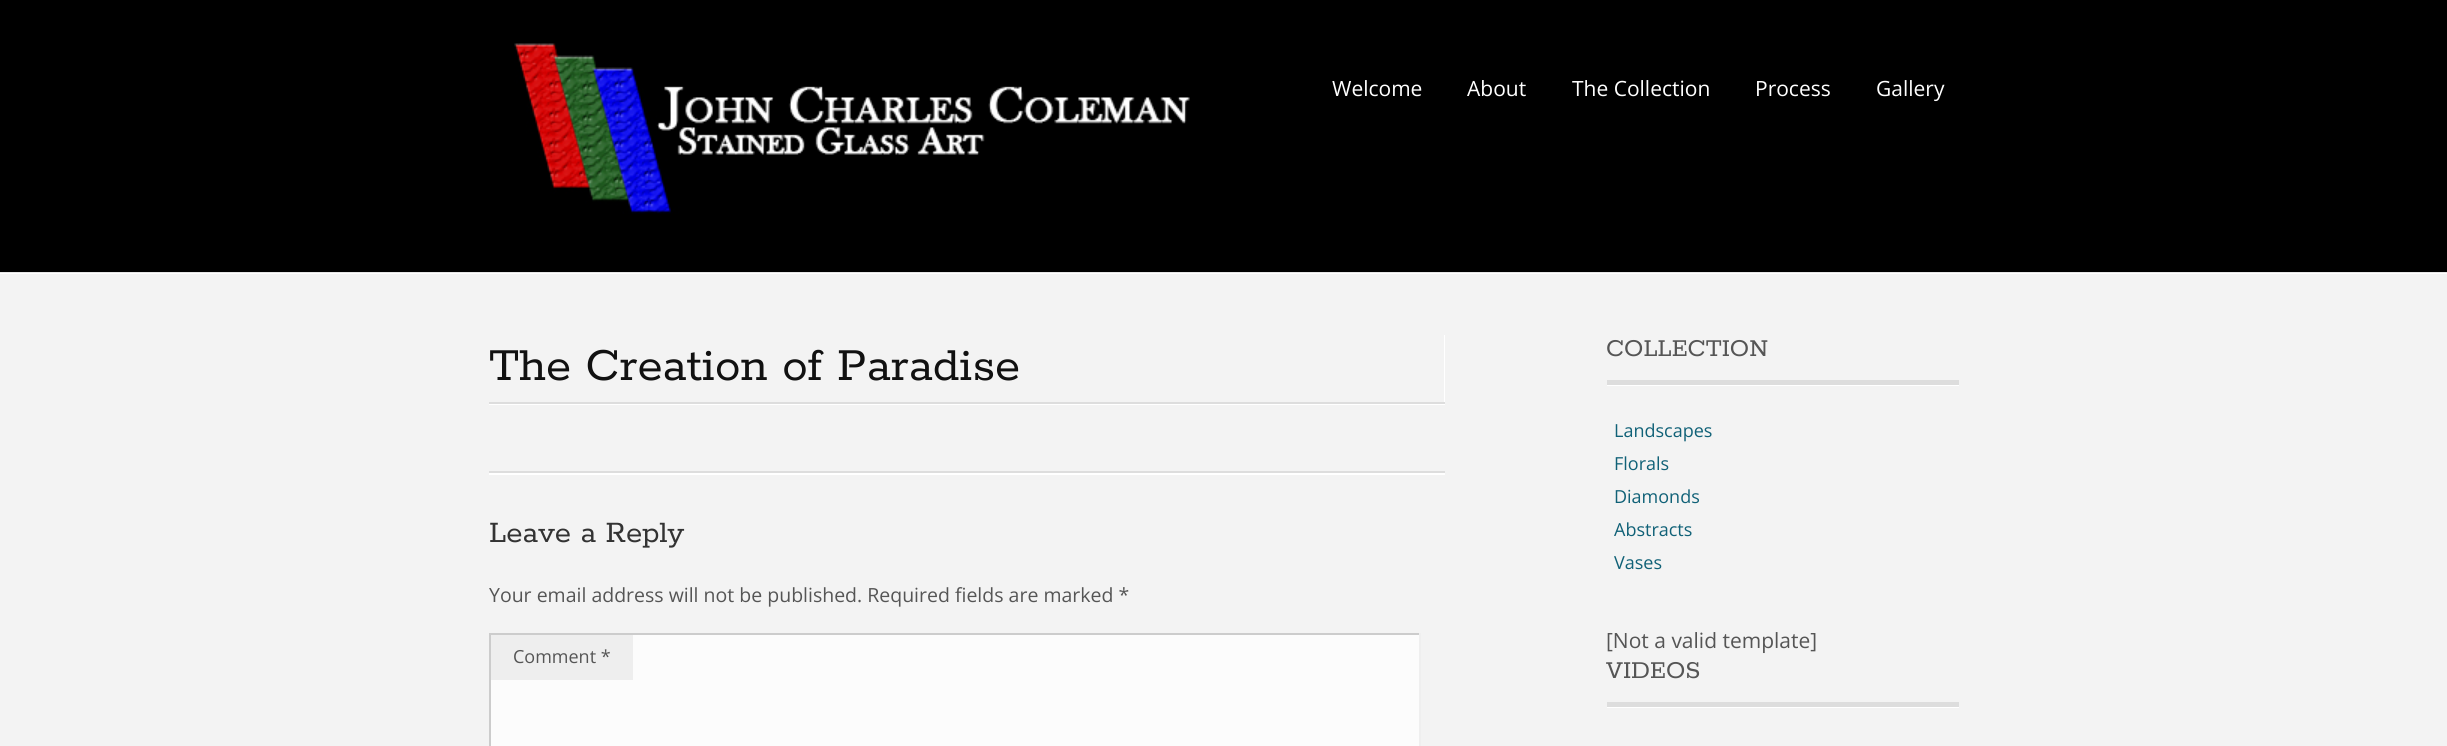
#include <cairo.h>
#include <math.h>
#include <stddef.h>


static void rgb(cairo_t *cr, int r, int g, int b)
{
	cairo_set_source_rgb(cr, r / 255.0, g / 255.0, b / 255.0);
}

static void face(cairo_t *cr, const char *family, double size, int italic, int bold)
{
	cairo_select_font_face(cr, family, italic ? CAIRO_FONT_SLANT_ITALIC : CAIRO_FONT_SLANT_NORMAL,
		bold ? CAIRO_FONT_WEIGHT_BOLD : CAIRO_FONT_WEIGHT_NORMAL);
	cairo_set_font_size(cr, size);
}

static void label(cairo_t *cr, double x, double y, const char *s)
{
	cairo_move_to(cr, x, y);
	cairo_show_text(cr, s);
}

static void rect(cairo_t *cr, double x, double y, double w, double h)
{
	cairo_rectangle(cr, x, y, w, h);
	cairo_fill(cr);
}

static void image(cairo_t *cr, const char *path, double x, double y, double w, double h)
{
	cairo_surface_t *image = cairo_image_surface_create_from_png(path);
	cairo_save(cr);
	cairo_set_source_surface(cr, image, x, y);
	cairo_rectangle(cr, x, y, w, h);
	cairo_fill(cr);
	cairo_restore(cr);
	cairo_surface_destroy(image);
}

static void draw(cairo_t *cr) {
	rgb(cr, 243, 243, 243);
	cairo_paint(cr);
	rgb(cr, 0, 0, 0);
	rect(cr, 0, 0, 2447, 272);
	rgb(cr, 230, 230, 230);
	rect(cr, 0, 272, 2447, 1);
	image(cr, "image0.png", 514, 43, 676, 171);
	face(cr, "Open Sans", 21, 0, 0);
	rgb(cr, 255, 255, 255);
	label(cr, 1332, 96, "Welcome");
	label(cr, 1467, 96, "About");
	label(cr, 1572, 96, "The Collection");
	label(cr, 1755, 96, "Process");
	label(cr, 1876, 96, "Gallery");
	rgb(cr, 254, 254, 254);
	rect(cr, 0, 273, 2447, 1);
	rgb(cr, 255, 255, 255);
	cairo_new_path(cr);
	cairo_move_to(cr, 489, 404);
	cairo_line_to(cr, 489, 405);
	cairo_line_to(cr, 1445, 405);
	cairo_line_to(cr, 1445, 335);
	cairo_line_to(cr, 1444, 335);
	cairo_line_to(cr, 1444, 404);
	cairo_close_path(cr);
	cairo_fill(cr);
	rgb(cr, 221, 221, 221);
	rect(cr, 489, 402, 956, 2);
	face(cr, "Rokkitt", 51, 0, 0);
	rgb(cr, 17, 17, 17);
	label(cr, 489, 380, "The Creation of Paradise");
	rgb(cr, 255, 255, 255);
	rect(cr, 489, 473, 956, 2);
	rgb(cr, 221, 221, 221);
	rect(cr, 489, 471, 956, 2);
	face(cr, "Rokkitt", 33, 0, 0);
	rgb(cr, 51, 51, 51);
	label(cr, 489, 542, "Leave a Reply");
	face(cr, "Open Sans", 19.5, 0, 0);
	rgb(cr, 85, 85, 85);
	label(cr, 489, 602, "Your email address will not be published. Required fields are marked *");
	rgb(cr, 252, 252, 252);
	rect(cr, 491, 635, 928, 111);
	rgb(cr, 204, 204, 204);
	rect(cr, 489, 633, 932, 2);
	rgb(cr, 239, 239, 239);
	rect(cr, 1419, 633, 2, 113);
	rgb(cr, 204, 204, 204);
	rect(cr, 489, 633, 2, 113);
	rgb(cr, 238, 238, 238);
	rect(cr, 491, 635, 142, 45);
	face(cr, "Open Sans", 18, 0, 0);
	rgb(cr, 85, 85, 85);
	label(cr, 513, 663, "Comment *");
	rgb(cr, 255, 255, 255);
	rect(cr, 1607, 385, 352, 1);
	rgb(cr, 221, 221, 221);
	rect(cr, 1607, 380, 352, 5);
	face(cr, "Rokkitt", 27, 0, 0);
	rgb(cr, 85, 85, 85);
	label(cr, 1606, 356, "COLLECTION");
	face(cr, "Open Sans", 18, 0, 0);
	rgb(cr, 16, 97, 119);
	label(cr, 1614, 437, "Landscapes");
	label(cr, 1614, 470, "Florals");
	label(cr, 1614, 503, "Diamonds");
	label(cr, 1614, 536, "Abstracts");
	label(cr, 1614, 569, "Vases");
	face(cr, "Open Sans", 21, 0, 0);
	rgb(cr, 85, 85, 85);
	label(cr, 1606, 648, "[Not a valid template]");
	rgb(cr, 255, 255, 255);
	rect(cr, 1607, 707, 352, 1);
	rgb(cr, 221, 221, 221);
	rect(cr, 1607, 702, 352, 5);
	face(cr, "Rokkitt", 27, 0, 0);
	rgb(cr, 85, 85, 85);
	label(cr, 1606, 678, "VIDEOS");
}

int main(void) {
	cairo_surface_t *surface = cairo_image_surface_create(CAIRO_FORMAT_RGB24, 2447, 746);
	cairo_t *cr = cairo_create(surface);
	cairo_font_options_t *options = cairo_font_options_create();
	cairo_font_options_set_hint_metrics(options, CAIRO_HINT_METRICS_OFF);
	cairo_font_options_set_hint_style(options, CAIRO_HINT_STYLE_NONE);
	cairo_set_font_options(cr, options);
	cairo_set_miter_limit(cr, 4);
	draw(cr);
	cairo_surface_write_to_png(surface, "render.png");
	cairo_font_options_destroy(options);
	cairo_destroy(cr);
	cairo_surface_destroy(surface);
	return 0;
}
